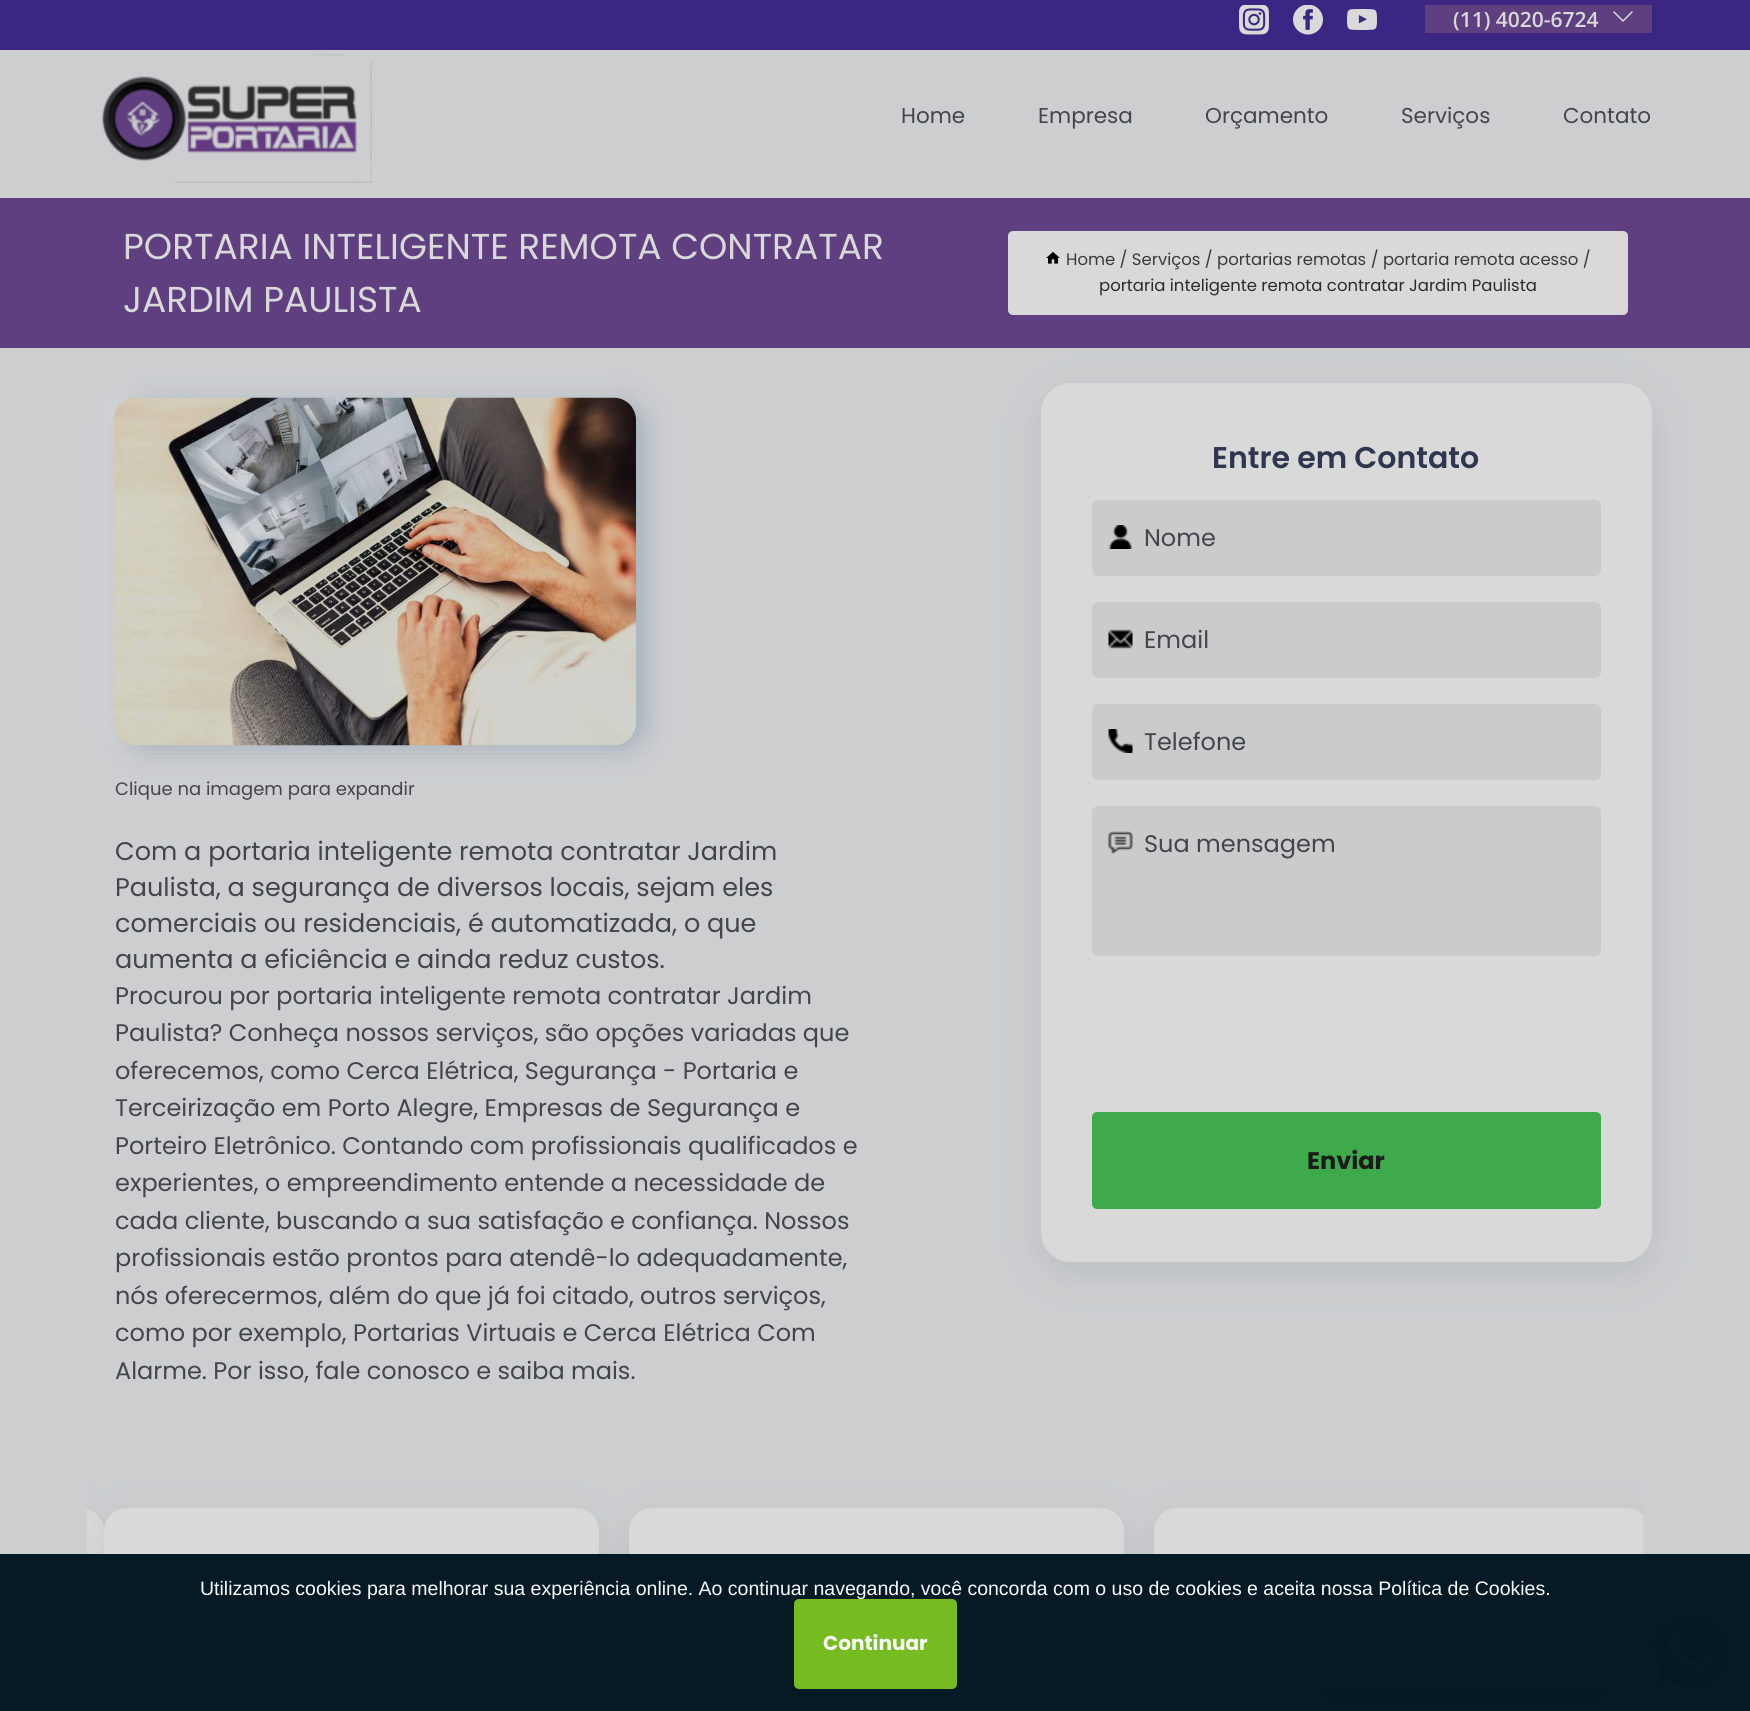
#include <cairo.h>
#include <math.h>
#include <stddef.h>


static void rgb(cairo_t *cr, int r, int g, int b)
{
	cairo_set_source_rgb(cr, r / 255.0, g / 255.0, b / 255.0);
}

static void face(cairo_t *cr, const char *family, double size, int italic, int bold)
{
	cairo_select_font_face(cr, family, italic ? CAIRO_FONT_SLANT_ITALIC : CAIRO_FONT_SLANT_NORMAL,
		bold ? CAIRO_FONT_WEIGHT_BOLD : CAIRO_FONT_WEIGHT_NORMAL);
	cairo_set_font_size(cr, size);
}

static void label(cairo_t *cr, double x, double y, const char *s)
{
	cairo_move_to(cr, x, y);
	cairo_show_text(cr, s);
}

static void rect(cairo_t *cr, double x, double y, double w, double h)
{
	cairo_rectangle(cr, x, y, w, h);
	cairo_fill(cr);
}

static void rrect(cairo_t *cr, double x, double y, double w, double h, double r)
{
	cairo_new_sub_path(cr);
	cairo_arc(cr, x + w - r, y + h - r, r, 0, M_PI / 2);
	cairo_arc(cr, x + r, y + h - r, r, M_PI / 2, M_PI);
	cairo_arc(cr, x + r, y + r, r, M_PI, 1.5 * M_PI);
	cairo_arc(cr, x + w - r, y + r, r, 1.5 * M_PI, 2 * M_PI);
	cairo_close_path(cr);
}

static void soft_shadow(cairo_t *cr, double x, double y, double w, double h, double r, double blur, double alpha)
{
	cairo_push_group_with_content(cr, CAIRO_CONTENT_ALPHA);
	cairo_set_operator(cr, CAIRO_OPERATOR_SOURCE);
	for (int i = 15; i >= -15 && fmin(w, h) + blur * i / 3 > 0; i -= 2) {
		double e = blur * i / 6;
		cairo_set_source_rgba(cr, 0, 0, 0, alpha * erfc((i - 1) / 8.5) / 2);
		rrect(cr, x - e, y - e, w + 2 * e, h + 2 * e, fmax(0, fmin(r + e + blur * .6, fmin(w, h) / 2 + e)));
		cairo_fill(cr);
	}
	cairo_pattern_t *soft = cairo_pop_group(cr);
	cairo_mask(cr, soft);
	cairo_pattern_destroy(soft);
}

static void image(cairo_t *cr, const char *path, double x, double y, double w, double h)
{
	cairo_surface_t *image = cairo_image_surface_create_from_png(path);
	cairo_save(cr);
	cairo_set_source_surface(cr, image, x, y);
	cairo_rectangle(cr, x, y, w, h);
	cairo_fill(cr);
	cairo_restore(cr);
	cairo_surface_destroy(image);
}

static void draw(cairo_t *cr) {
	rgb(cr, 204, 206, 208);
	cairo_paint(cr);
	rgb(cr, 60, 38, 131);
	rect(cr, 0, 0, 1750, 50);
	image(cr, "image0.png", 1239, 5, 30, 30);
	image(cr, "image1.png", 1293, 5, 30, 30);
	image(cr, "image2.png", 1347, 9, 30, 21);
	rgb(cr, 95, 63, 127);
	rect(cr, 1425, 5, 227, 28);
	face(cr, "Open Sans SemiBold", 21, 0, 0);
	rgb(cr, 217, 217, 217);
	label(cr, 1453, 27, "(11) 4020-6724");
	image(cr, "image3.png", 1613, 11, 20, 11);
	image(cr, "image4.png", 102, 54, 270, 129);
	face(cr, "Poppins", 21.5, 0, 0);
	rgb(cr, 65, 69, 78);
	label(cr, 901, 123, "Home");
	label(cr, 1038, 123, "Empresa");
	label(cr, 1205, 123, "Orçamento");
	label(cr, 1401, 123, "Serviços");
	label(cr, 1563, 123, "Contato");
	rgb(cr, 95, 63, 127);
	rect(cr, 0, 198, 1750, 150);
	face(cr, "Poppins", 36, 0, 0);
	rgb(cr, 217, 217, 217);
	label(cr, 123, 259, "PORTARIA INTELIGENTE REMOTA CONTRATAR");
	label(cr, 123, 312, "JARDIM PAULISTA");
	rrect(cr, 1008, 231, 620, 84, 5);
	cairo_fill(cr);
	image(cr, "image5.png", 1046, 252, 14, 12);
	face(cr, "Poppins", 16.5, 0, 0);
	rgb(cr, 58, 58, 58);
	label(cr, 1066, 265, "Home / Serviços / portarias remotas / portaria remota acesso /");
	rgb(cr, 43, 43, 43);
	label(cr, 1099, 291, "portaria inteligente remota contratar Jardim Paulista");
	rgb(cr, 217, 217, 217);
	soft_shadow(cr, 105, 395, 522, 348, 23, 12, 0.8);
	rgb(cr, 116, 140, 162);
	soft_shadow(cr, 123, 401, 522, 348, 23, 12, 0.48);
	image(cr, "image6.png", 114, 397, 522, 349);
	face(cr, "Poppins", 18, 0, 0);
	rgb(cr, 65, 69, 78);
	label(cr, 115, 795, "Clique na imagem para expandir");
	face(cr, "Poppins", 25.5, 0, 0);
	label(cr, 115, 860, "Com a portaria inteligente remota contratar Jardim");
	label(cr, 115, 896, "Paulista, a segurança de diversos locais, sejam eles");
	label(cr, 115, 932, "comerciais ou residenciais, é automatizada, o que");
	label(cr, 115, 968, "aumenta a eficiência e ainda reduz custos.");
	face(cr, "Poppins", 24, 0, 0);
	label(cr, 115, 1004, "Procurou por portaria inteligente remota contratar Jardim");
	label(cr, 115, 1041, "Paulista? Conheça nossos serviços, são opções variadas que");
	label(cr, 115, 1079, "oferecemos, como Cerca Elétrica, Segurança - Portaria e");
	label(cr, 115, 1116, "Terceirização em Porto Alegre, Empresas de Segurança e");
	label(cr, 115, 1154, "Porteiro Eletrônico. Contando com profissionais qualificados e");
	label(cr, 115, 1191, "experientes, o empreendimento entende a necessidade de");
	label(cr, 115, 1229, "cada cliente, buscando a sua satisfação e confiança. Nossos");
	label(cr, 115, 1266, "profissionais estão prontos para atendê-lo adequadamente,");
	label(cr, 115, 1304, "nós oferecermos, além do que já foi citado, outros serviços,");
	label(cr, 115, 1341, "como por exemplo, Portarias Virtuais e Cerca Elétrica Com");
	label(cr, 115, 1379, "Alarme. Por isso, fale conosco e saiba mais.");
	rgb(cr, 127, 133, 140);
	soft_shadow(cr, 1041, 395, 611, 879, 30, 18, 0.2);
	rgb(cr, 217, 217, 217);
	rrect(cr, 1041, 383, 611, 879, 30);
	cairo_fill(cr);
	face(cr, "Poppins SemiBold", 30, 0, 0);
	rgb(cr, 46, 54, 81);
	label(cr, 1212, 468, "Entre em Contato");
	rgb(cr, 203, 203, 203);
	rrect(cr, 1092, 500, 509, 76, 6);
	cairo_fill(cr);
	image(cr, "image7.png", 1108, 525, 25, 24);
	face(cr, "Poppins", 24, 0, 0);
	rgb(cr, 65, 69, 78);
	label(cr, 1144, 546, "Nome");
	rgb(cr, 203, 203, 203);
	rrect(cr, 1092, 602, 509, 76, 6);
	cairo_fill(cr);
	image(cr, "image8.png", 1108, 629, 25, 20);
	rgb(cr, 65, 69, 78);
	label(cr, 1144, 648, "Email");
	rgb(cr, 203, 203, 203);
	rrect(cr, 1092, 704, 509, 76, 6);
	cairo_fill(cr);
	image(cr, "image9.png", 1108, 729, 25, 24);
	rgb(cr, 65, 69, 78);
	label(cr, 1144, 750, "Telefone");
	rgb(cr, 203, 203, 203);
	rrect(cr, 1092, 806, 509, 150, 6);
	cairo_fill(cr);
	image(cr, "image10.png", 1108, 831, 25, 23);
	rgb(cr, 65, 69, 78);
	label(cr, 1144, 852, "Sua mensagem");
	rgb(cr, 62, 170, 75);
	rrect(cr, 1092, 1112, 509, 97, 5);
	cairo_fill(cr);
	face(cr, "Poppins", 24, 0, 1);
	rgb(cr, 27, 27, 27);
	label(cr, 1307, 1169, "Enviar");
	cairo_save(cr);
	cairo_rectangle(cr, 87, 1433, 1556, 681);
	cairo_clip(cr);
	rgb(cr, 127, 133, 140);
	soft_shadow(cr, -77, 1520, 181, 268, 23, 18, 0.2);
	cairo_restore(cr);
	rgb(cr, 217, 217, 217);
	cairo_new_path(cr);
	cairo_move_to(cr, 87, 1508);
	cairo_line_to(cr, 81, 1508);
	cairo_curve_to(cr, 93.5, 1508, 104, 1518.5, 104, 1531);
	cairo_line_to(cr, 104, 1711);
	cairo_curve_to(cr, 104, 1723.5, 93.5, 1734, 81, 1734);
	cairo_line_to(cr, 87, 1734);
	cairo_close_path(cr);
	cairo_fill(cr);
	cairo_save(cr);
	cairo_rectangle(cr, 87, 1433, 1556, 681);
	cairo_clip(cr);
	rgb(cr, 127, 133, 140);
	soft_shadow(cr, 104, 1520, 495, 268, 23, 18, 0.2);
	cairo_restore(cr);
	rrect(cr, 104, 1508, 495, 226, 23);
	cairo_fill(cr);
	rgb(cr, 127, 133, 140);
	soft_shadow(cr, 629, 1520, 495, 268, 23, 18, 0.2);
	rgb(cr, 217, 217, 217);
	rrect(cr, 629, 1508, 495, 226, 23);
	cairo_fill(cr);
	cairo_save(cr);
	cairo_rectangle(cr, 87, 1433, 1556, 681);
	cairo_clip(cr);
	rgb(cr, 127, 133, 140);
	soft_shadow(cr, 1154, 1520, 495, 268, 23, 18, 0.2);
	cairo_restore(cr);
	cairo_save(cr);
	cairo_rectangle(cr, 87, 1433, 1556, 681);
	cairo_clip(cr);
	rrect(cr, 1154, 1508, 495, 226, 23);
	cairo_fill(cr);
	cairo_restore(cr);
	rgb(cr, 12, 26, 31);
	soft_shadow(cr, 1304, 1614, 319, 83, 23, 12, 0.32);
	soft_shadow(cr, 1304, 1614, 319, 83, 23, 3, 0.12);
	rgb(cr, 217, 217, 217);
	rrect(cr, 1304, 1611, 319, 83, 23);
	cairo_fill(cr);
	cairo_new_path(cr);
	cairo_move_to(cr, 1622, 1674);
	cairo_line_to(cr, 1622, 1629);
	cairo_line_to(cr, 1644, 1652);
	cairo_close_path(cr);
	cairo_fill(cr);
	image(cr, "image11.png", 1645, 1606, 91, 91);
	cairo_set_source_rgba(cr, 0.008, 0.09, 0.133, 0.98);
	rect(cr, 0, 1554, 1750, 157);
	face(cr, "Liberation Sans", 19.5, 0, 0);
	rgb(cr, 249, 250, 250);
	label(cr, 200, 1595, "Utilizamos cookies para melhorar sua experiência online. Ao continuar navegando, você concorda com o uso de cookies e aceita nossa Política de Cookies.");
	cairo_set_source_rgba(cr, 0.471, 0.745, 0.125, 0.98);
	rrect(cr, 794, 1599, 163, 90, 5);
	cairo_fill(cr);
	face(cr, "Poppins", 20, 0, 1);
	rgb(cr, 249, 250, 250);
	label(cr, 823, 1650, "Continuar");
}

int main(void) {
	cairo_surface_t *surface = cairo_image_surface_create(CAIRO_FORMAT_RGB24, 1750, 1711);
	cairo_t *cr = cairo_create(surface);
	cairo_font_options_t *options = cairo_font_options_create();
	cairo_font_options_set_hint_metrics(options, CAIRO_HINT_METRICS_OFF);
	cairo_font_options_set_hint_style(options, CAIRO_HINT_STYLE_NONE);
	cairo_set_font_options(cr, options);
	cairo_set_miter_limit(cr, 4);
	draw(cr);
	cairo_surface_write_to_png(surface, "render.png");
	cairo_font_options_destroy(options);
	cairo_destroy(cr);
	cairo_surface_destroy(surface);
	return 0;
}
